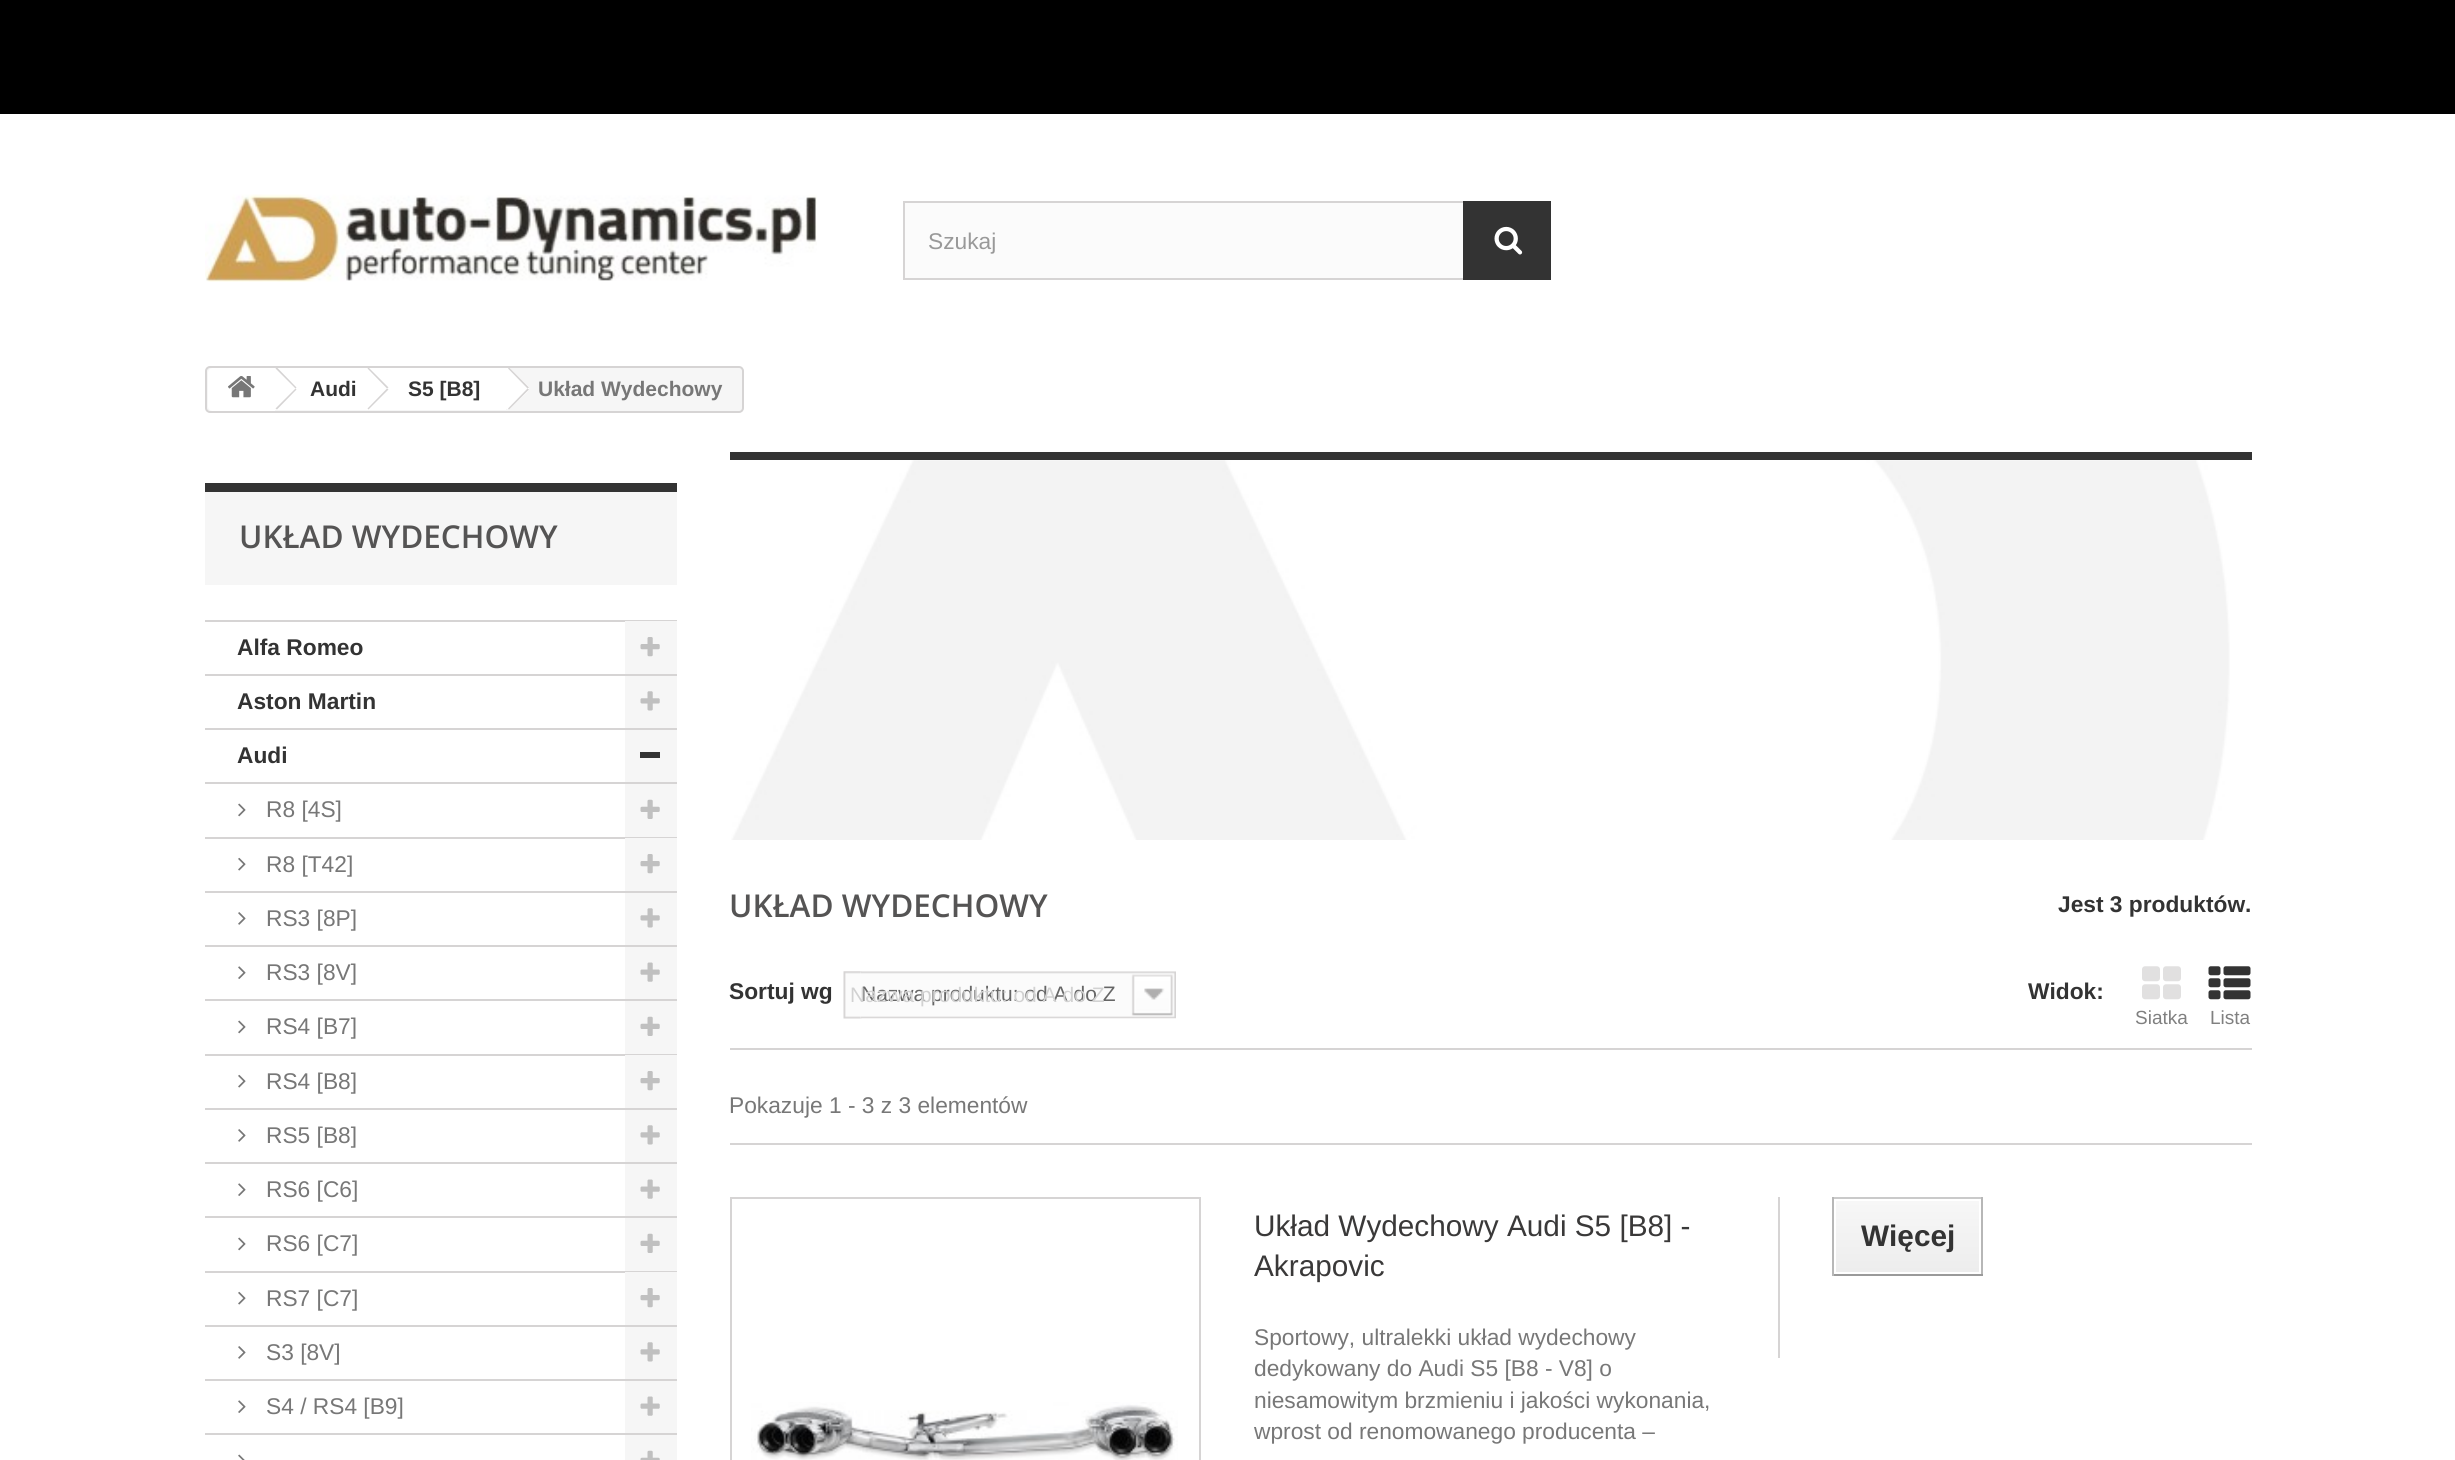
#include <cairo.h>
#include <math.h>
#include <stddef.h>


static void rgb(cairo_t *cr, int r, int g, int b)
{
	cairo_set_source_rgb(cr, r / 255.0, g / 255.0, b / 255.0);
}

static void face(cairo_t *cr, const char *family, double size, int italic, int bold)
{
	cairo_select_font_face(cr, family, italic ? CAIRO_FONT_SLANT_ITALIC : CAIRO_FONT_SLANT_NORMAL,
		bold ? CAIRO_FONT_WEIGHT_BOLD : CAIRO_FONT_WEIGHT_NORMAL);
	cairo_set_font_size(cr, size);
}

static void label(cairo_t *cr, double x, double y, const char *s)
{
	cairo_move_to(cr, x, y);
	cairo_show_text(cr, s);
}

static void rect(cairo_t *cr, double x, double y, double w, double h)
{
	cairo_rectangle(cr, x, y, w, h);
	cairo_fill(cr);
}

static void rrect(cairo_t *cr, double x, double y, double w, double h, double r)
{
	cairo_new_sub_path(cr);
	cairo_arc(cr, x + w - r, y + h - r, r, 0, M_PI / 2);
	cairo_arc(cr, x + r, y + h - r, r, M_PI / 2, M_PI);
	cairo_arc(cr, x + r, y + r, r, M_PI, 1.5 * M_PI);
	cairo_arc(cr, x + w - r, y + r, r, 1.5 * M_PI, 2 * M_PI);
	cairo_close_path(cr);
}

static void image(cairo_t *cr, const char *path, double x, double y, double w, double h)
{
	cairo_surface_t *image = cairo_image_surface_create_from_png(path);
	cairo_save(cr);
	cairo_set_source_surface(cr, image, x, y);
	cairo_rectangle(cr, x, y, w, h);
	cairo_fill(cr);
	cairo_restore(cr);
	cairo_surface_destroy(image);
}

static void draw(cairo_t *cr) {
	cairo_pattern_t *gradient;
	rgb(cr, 255, 255, 255);
	cairo_paint(cr);
	rgb(cr, 0, 0, 0);
	rect(cr, 0, 0, 2455, 114);
	image(cr, "image0.png", 205, 194, 612, 88);
	rgb(cr, 251, 251, 251);
	rect(cr, 905, 203, 558, 75);
	cairo_rectangle(cr, 904, 202, 646, 77);
	rgb(cr, 214, 212, 212);
	cairo_stroke(cr);
	face(cr, "Liberation Sans", 22.75, 0, 0);
	rgb(cr, 153, 153, 153);
	label(cr, 928, 249, "Szukaj");
	rgb(cr, 51, 51, 51);
	rect(cr, 1463, 201, 88, 79);
	image(cr, "image1.png", 1494, 226, 29, 29);
	rgb(cr, 246, 246, 246);
	rrect(cr, 206, 367, 537, 45, 4);
	cairo_fill_preserve(cr);
	rgb(cr, 214, 212, 212);
	cairo_stroke(cr);
	rgb(cr, 255, 255, 255);
	cairo_new_path(cr);
	cairo_move_to(cr, 213, 368);
	cairo_line_to(cr, 275, 368);
	cairo_line_to(cr, 275, 411);
	cairo_line_to(cr, 213, 411);
	cairo_curve_to(cr, 210, 411, 208, 409, 208, 406);
	cairo_line_to(cr, 208, 373);
	cairo_curve_to(cr, 208, 370, 210, 368, 213, 368);
	cairo_close_path(cr);
	cairo_fill(cr);
	image(cr, "image2.png", 228, 376, 27, 22);
	rect(cr, 275, 368, 94, 42);
	rgb(cr, 214, 212, 212);
	cairo_new_path(cr);
	cairo_move_to(cr, 277.5, 368);
	cairo_line_to(cr, 296.5, 387.5);
	cairo_line_to(cr, 295.5, 388.5);
	cairo_line_to(cr, 275.5, 368.5);
	cairo_line_to(cr, 276, 368);
	cairo_close_path(cr);
	cairo_fill(cr);
	cairo_new_path(cr);
	cairo_move_to(cr, 295.5, 388.5);
	cairo_line_to(cr, 296.5, 389.5);
	cairo_line_to(cr, 277, 409.5);
	cairo_line_to(cr, 275.5, 408.5);
	cairo_close_path(cr);
	cairo_fill(cr);
	face(cr, "Liberation Sans", 21, 0, 1);
	rgb(cr, 51, 51, 51);
	label(cr, 310, 396, "Audi");
	rgb(cr, 255, 255, 255);
	cairo_new_path(cr);
	cairo_move_to(cr, 387, 369);
	cairo_line_to(cr, 386, 368);
	cairo_line_to(cr, 383, 368);
	cairo_line_to(cr, 371, 380);
	cairo_curve_to(cr, 360, 391, 363, 389, 374, 400);
	cairo_line_to(cr, 379, 405);
	cairo_curve_to(cr, 382, 408, 384, 411, 387, 408);
	cairo_line_to(cr, 399, 397);
	cairo_curve_to(cr, 401, 395, 409, 390, 405, 386);
	cairo_close_path(cr);
	cairo_fill(cr);
	rect(cr, 369, 368, 137, 42);
	rgb(cr, 214, 212, 212);
	cairo_new_path(cr);
	cairo_move_to(cr, 368.5, 367.5);
	cairo_line_to(cr, 388.5, 387.5);
	cairo_line_to(cr, 387, 388.5);
	cairo_line_to(cr, 367.5, 368.5);
	cairo_close_path(cr);
	cairo_fill(cr);
	cairo_new_path(cr);
	cairo_move_to(cr, 387, 388.5);
	cairo_line_to(cr, 388.5, 389.5);
	cairo_line_to(cr, 368.5, 409.5);
	cairo_line_to(cr, 367.5, 408.5);
	cairo_close_path(cr);
	cairo_fill(cr);
	rgb(cr, 51, 51, 51);
	label(cr, 408, 396, "S5 [B8]");
	rgb(cr, 255, 255, 255);
	cairo_new_path(cr);
	cairo_move_to(cr, 510, 369);
	cairo_line_to(cr, 509, 368);
	cairo_line_to(cr, 506, 368);
	cairo_line_to(cr, 494, 380);
	cairo_curve_to(cr, 483, 391, 486, 389, 496, 400);
	cairo_line_to(cr, 502, 405);
	cairo_curve_to(cr, 505, 408, 507, 411, 510, 408);
	cairo_line_to(cr, 522, 397);
	cairo_curve_to(cr, 524, 395, 532, 390, 528, 386);
	cairo_close_path(cr);
	cairo_fill(cr);
	rgb(cr, 214, 212, 212);
	cairo_new_path(cr);
	cairo_move_to(cr, 509, 367.5);
	cairo_line_to(cr, 529, 387.5);
	cairo_line_to(cr, 527.5, 388.5);
	cairo_line_to(cr, 508, 368.5);
	cairo_close_path(cr);
	cairo_fill(cr);
	cairo_new_path(cr);
	cairo_move_to(cr, 527.5, 388.5);
	cairo_line_to(cr, 529, 389.5);
	cairo_line_to(cr, 509, 409.5);
	cairo_line_to(cr, 508, 408.5);
	cairo_close_path(cr);
	cairo_fill(cr);
	rgb(cr, 119, 119, 119);
	label(cr, 538, 396, "Układ Wydechowy");
	rgb(cr, 246, 246, 246);
	rect(cr, 205, 492, 472, 93);
	rgb(cr, 51, 51, 51);
	rect(cr, 205, 483, 472, 9);
	face(cr, "Open Sans SemiBold", 31.5, 0, 0);
	rgb(cr, 85, 84, 84);
	label(cr, 239, 548, "UKŁAD WYDECHOWY");
	rgb(cr, 214, 212, 212);
	rect(cr, 205, 620, 472, 2);
	rect(cr, 205, 674, 472, 2);
	face(cr, "Liberation Sans", 22.75, 0, 1);
	rgb(cr, 51, 51, 51);
	label(cr, 237, 655, "Alfa Romeo");
	rgb(cr, 246, 246, 246);
	rect(cr, 625, 621, 52, 53);
	image(cr, "image3.png", 640, 637, 20, 20);
	rgb(cr, 214, 212, 212);
	rect(cr, 205, 728, 472, 2);
	rgb(cr, 51, 51, 51);
	label(cr, 237, 709, "Aston Martin");
	rgb(cr, 246, 246, 246);
	rect(cr, 625, 676, 52, 52);
	image(cr, "image4.png", 640, 691, 20, 20);
	rgb(cr, 214, 212, 212);
	rect(cr, 205, 782, 472, 2);
	rgb(cr, 51, 51, 51);
	label(cr, 237, 763, "Audi");
	rgb(cr, 246, 246, 246);
	rect(cr, 625, 730, 52, 52);
	rgb(cr, 51, 51, 51);
	rect(cr, 640, 752, 20, 6);
	rgb(cr, 214, 212, 212);
	rect(cr, 205, 837, 472, 2);
	image(cr, "image5.png", 238, 803, 8, 14);
	face(cr, "Liberation Sans", 22.75, 0, 0);
	rgb(cr, 119, 119, 119);
	label(cr, 266, 817, "R8 [4S]");
	rgb(cr, 246, 246, 246);
	rect(cr, 625, 784, 52, 53);
	image(cr, "image6.png", 640, 799, 20, 20);
	rgb(cr, 214, 212, 212);
	rect(cr, 205, 891, 472, 2);
	image(cr, "image7.png", 238, 857, 8, 14);
	rgb(cr, 119, 119, 119);
	label(cr, 266, 872, "R8 [T42]");
	rgb(cr, 246, 246, 246);
	rect(cr, 625, 838, 52, 53);
	image(cr, "image3.png", 640, 854, 20, 20);
	rgb(cr, 214, 212, 212);
	rect(cr, 205, 945, 472, 2);
	image(cr, "image8.png", 238, 912, 8, 13);
	rgb(cr, 119, 119, 119);
	label(cr, 266, 926, "RS3 [8P]");
	rgb(cr, 246, 246, 246);
	rect(cr, 625, 893, 52, 52);
	image(cr, "image4.png", 640, 908, 20, 20);
	rgb(cr, 214, 212, 212);
	rect(cr, 205, 999, 472, 2);
	image(cr, "image9.png", 238, 966, 8, 13);
	rgb(cr, 119, 119, 119);
	label(cr, 266, 980, "RS3 [8V]");
	rgb(cr, 246, 246, 246);
	rect(cr, 625, 947, 52, 52);
	image(cr, "image10.png", 640, 962, 20, 20);
	rgb(cr, 214, 212, 212);
	rect(cr, 205, 1054, 472, 2);
	image(cr, "image5.png", 238, 1020, 8, 14);
	rgb(cr, 119, 119, 119);
	label(cr, 266, 1034, "RS4 [B7]");
	rgb(cr, 246, 246, 246);
	rect(cr, 625, 1001, 52, 53);
	image(cr, "image6.png", 640, 1016, 20, 20);
	rgb(cr, 214, 212, 212);
	rect(cr, 205, 1108, 472, 2);
	image(cr, "image7.png", 238, 1074, 8, 14);
	rgb(cr, 119, 119, 119);
	label(cr, 266, 1089, "RS4 [B8]");
	rgb(cr, 246, 246, 246);
	rect(cr, 625, 1055, 52, 53);
	image(cr, "image3.png", 640, 1071, 20, 20);
	rgb(cr, 214, 212, 212);
	rect(cr, 205, 1162, 472, 2);
	image(cr, "image8.png", 238, 1129, 8, 13);
	rgb(cr, 119, 119, 119);
	label(cr, 266, 1143, "RS5 [B8]");
	rgb(cr, 246, 246, 246);
	rect(cr, 625, 1110, 52, 52);
	image(cr, "image4.png", 640, 1125, 20, 20);
	rgb(cr, 214, 212, 212);
	rect(cr, 205, 1216, 472, 2);
	image(cr, "image9.png", 238, 1183, 8, 13);
	rgb(cr, 119, 119, 119);
	label(cr, 266, 1197, "RS6 [C6]");
	rgb(cr, 246, 246, 246);
	rect(cr, 625, 1164, 52, 52);
	image(cr, "image10.png", 640, 1179, 20, 20);
	rgb(cr, 214, 212, 212);
	rect(cr, 205, 1271, 472, 2);
	image(cr, "image5.png", 238, 1237, 8, 14);
	rgb(cr, 119, 119, 119);
	label(cr, 266, 1251, "RS6 [C7]");
	rgb(cr, 246, 246, 246);
	rect(cr, 625, 1218, 52, 53);
	image(cr, "image6.png", 640, 1233, 20, 20);
	rgb(cr, 214, 212, 212);
	rect(cr, 205, 1325, 472, 2);
	image(cr, "image7.png", 238, 1291, 8, 14);
	rgb(cr, 119, 119, 119);
	label(cr, 266, 1306, "RS7 [C7]");
	rgb(cr, 246, 246, 246);
	rect(cr, 625, 1272, 52, 53);
	image(cr, "image3.png", 640, 1288, 20, 20);
	rgb(cr, 214, 212, 212);
	rect(cr, 205, 1379, 472, 2);
	image(cr, "image8.png", 238, 1346, 8, 13);
	rgb(cr, 119, 119, 119);
	label(cr, 266, 1360, "S3 [8V]");
	rgb(cr, 246, 246, 246);
	rect(cr, 625, 1327, 52, 52);
	image(cr, "image4.png", 640, 1342, 20, 20);
	rgb(cr, 214, 212, 212);
	rect(cr, 205, 1433, 472, 2);
	image(cr, "image9.png", 238, 1400, 8, 13);
	rgb(cr, 119, 119, 119);
	label(cr, 266, 1414, "S4 / RS4 [B9]");
	rgb(cr, 246, 246, 246);
	rect(cr, 625, 1381, 52, 52);
	image(cr, "image10.png", 640, 1396, 20, 20);
	image(cr, "image11.png", 238, 1454, 7, 6);
	rect(cr, 625, 1435, 52, 25);
	image(cr, "image12.png", 640, 1450, 20, 10);
	rgb(cr, 51, 51, 51);
	rect(cr, 730, 452, 1522, 8);
	image(cr, "image13.png", 730, 460, 1522, 380);
	face(cr, "Open Sans SemiBold", 31.5, 0, 0);
	rgb(cr, 85, 84, 84);
	label(cr, 729, 917, "UKŁAD WYDECHOWY");
	face(cr, "Liberation Sans", 22.75, 0, 1);
	rgb(cr, 51, 51, 51);
	label(cr, 2058, 912, "Jest 3 produktów.");
	rgb(cr, 214, 212, 212);
	rect(cr, 730, 1048, 1522, 2);
	rgb(cr, 51, 51, 51);
	label(cr, 729, 999, "Sortuj wg");
	image(cr, "image14.png", 843, 971, 19, 48);
	image(cr, "image15.png", 861, 971, 315, 48);
	face(cr, "Liberation Sans", 21, 0, 0);
	rgb(cr, 102, 102, 102);
	label(cr, 861, 1001, "Nazwa produktu: od A do Z");
	rgb(cr, 210, 210, 210);
	label(cr, 850, 1002, "Nazwa produktu: od A do Z");
	face(cr, "Liberation Sans", 22.75, 0, 1);
	rgb(cr, 51, 51, 51);
	label(cr, 2028, 999, "Widok:");
	image(cr, "image16.png", 2142, 966, 39, 34);
	face(cr, "Liberation Sans", 19, 0, 0);
	rgb(cr, 128, 128, 128);
	label(cr, 2135, 1024, "Siatka");
	image(cr, "image17.png", 2208, 966, 43, 34);
	label(cr, 2210, 1024, "Lista");
	face(cr, "Liberation Sans", 22.75, 0, 0);
	rgb(cr, 119, 119, 119);
	label(cr, 729, 1113, "Pokazuje 1 - 3 z 3 elementów");
	rgb(cr, 214, 212, 212);
	rect(cr, 730, 1143, 1522, 2);
	cairo_rectangle(cr, 731, 1198, 469, 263);
	cairo_stroke(cr);
	image(cr, "image18.png", 751, 1402, 427, 58);
	face(cr, "Liberation Sans", 29.75, 0, 0);
	rgb(cr, 58, 57, 57);
	label(cr, 1254, 1236, "Układ Wydechowy Audi S5 [B8] -");
	label(cr, 1254, 1276, "Akrapovic");
	face(cr, "Liberation Sans", 22.75, 0, 0);
	rgb(cr, 119, 119, 119);
	label(cr, 1254, 1345, "Sportowy, ultralekki układ wydechowy");
	label(cr, 1254, 1376, "dedykowany do Audi S5 [B8 - V8] o");
	label(cr, 1254, 1408, "niesamowitym brzmieniu i jakości wykonania,");
	label(cr, 1254, 1439, "wprost od renomowanego producenta –");
	rgb(cr, 214, 212, 212);
	rect(cr, 1778, 1197, 2, 161);
	rgb(cr, 202, 202, 202);
	rect(cr, 1832, 1197, 151, 2);
	rgb(cr, 183, 183, 183);
	rect(cr, 1981, 1197, 2, 79);
	rgb(cr, 154, 154, 154);
	rect(cr, 1832, 1274, 151, 2);
	rgb(cr, 183, 183, 183);
	rect(cr, 1832, 1197, 2, 79);
	gradient = cairo_pattern_create_linear(1908, 1201, 1908, 1272);
	cairo_pattern_add_color_stop_rgba(gradient, 0, 0.969, 0.969, 0.969, 1);
	cairo_pattern_add_color_stop_rgba(gradient, 1, 0.929, 0.929, 0.929, 1);
	cairo_set_source(cr, gradient);
	cairo_pattern_destroy(gradient);
	rect(cr, 1836, 1201, 143, 71);
	face(cr, "Liberation Sans", 29.75, 0, 1);
	rgb(cr, 51, 51, 51);
	label(cr, 1861, 1246, "Więcej");
}

int main(void) {
	cairo_surface_t *surface = cairo_image_surface_create(CAIRO_FORMAT_RGB24, 2455, 1460);
	cairo_t *cr = cairo_create(surface);
	cairo_font_options_t *options = cairo_font_options_create();
	cairo_font_options_set_hint_metrics(options, CAIRO_HINT_METRICS_OFF);
	cairo_font_options_set_hint_style(options, CAIRO_HINT_STYLE_NONE);
	cairo_set_font_options(cr, options);
	cairo_set_miter_limit(cr, 4);
	draw(cr);
	cairo_surface_write_to_png(surface, "render.png");
	cairo_font_options_destroy(options);
	cairo_destroy(cr);
	cairo_surface_destroy(surface);
	return 0;
}
